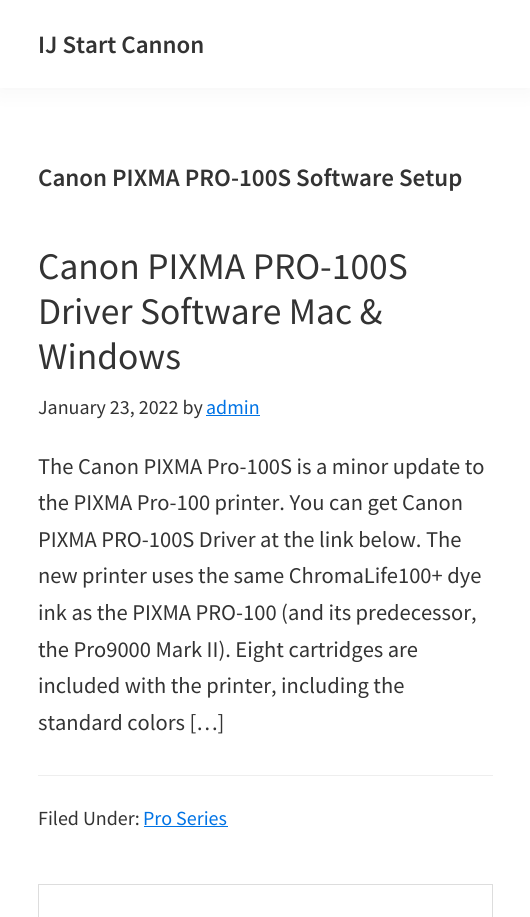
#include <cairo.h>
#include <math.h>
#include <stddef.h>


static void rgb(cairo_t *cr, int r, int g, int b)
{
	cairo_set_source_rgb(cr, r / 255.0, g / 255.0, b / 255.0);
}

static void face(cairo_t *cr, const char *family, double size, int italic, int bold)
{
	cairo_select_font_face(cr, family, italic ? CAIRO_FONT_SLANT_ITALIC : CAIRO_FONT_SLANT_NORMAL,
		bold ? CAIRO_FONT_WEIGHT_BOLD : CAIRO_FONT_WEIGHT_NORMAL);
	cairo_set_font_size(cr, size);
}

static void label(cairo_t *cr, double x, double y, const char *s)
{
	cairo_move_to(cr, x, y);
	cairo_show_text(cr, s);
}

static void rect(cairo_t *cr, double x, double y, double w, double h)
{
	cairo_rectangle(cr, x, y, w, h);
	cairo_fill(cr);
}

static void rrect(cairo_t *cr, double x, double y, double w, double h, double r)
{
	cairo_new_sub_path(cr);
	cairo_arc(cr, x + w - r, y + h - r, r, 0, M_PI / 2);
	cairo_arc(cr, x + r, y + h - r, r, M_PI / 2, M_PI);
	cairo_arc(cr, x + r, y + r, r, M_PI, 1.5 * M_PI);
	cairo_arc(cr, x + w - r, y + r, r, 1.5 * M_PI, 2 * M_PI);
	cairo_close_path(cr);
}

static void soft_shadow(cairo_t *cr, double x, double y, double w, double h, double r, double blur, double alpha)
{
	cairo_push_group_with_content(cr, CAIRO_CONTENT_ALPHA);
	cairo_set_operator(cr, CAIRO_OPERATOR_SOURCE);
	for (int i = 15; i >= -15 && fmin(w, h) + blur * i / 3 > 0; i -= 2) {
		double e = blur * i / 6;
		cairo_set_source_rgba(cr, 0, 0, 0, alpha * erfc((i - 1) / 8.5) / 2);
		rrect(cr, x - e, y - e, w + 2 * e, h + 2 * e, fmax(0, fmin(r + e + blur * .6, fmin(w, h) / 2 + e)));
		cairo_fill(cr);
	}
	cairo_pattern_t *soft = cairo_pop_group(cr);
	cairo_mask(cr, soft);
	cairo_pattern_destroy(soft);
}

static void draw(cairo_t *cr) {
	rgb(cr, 255, 255, 255);
	cairo_paint(cr);
	rgb(cr, 0, 0, 0);
	soft_shadow(cr, 0, 0, 530, 88, 0, 12.5, 0.05);
	rgb(cr, 255, 255, 255);
	rect(cr, 0, 0, 530, 88);
	face(cr, "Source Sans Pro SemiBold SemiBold", 25, 0, 0);
	rgb(cr, 51, 51, 51);
	label(cr, 38, 53, "IJ Start Cannon");
	label(cr, 38, 186, "Canon PIXMA PRO-100S Software Setup");
	face(cr, "Source Sans Pro", 37.5, 0, 0);
	label(cr, 38, 279, "Canon PIXMA PRO-100S");
	label(cr, 38, 324, "Driver Software Mac &");
	label(cr, 38, 369, "Windows");
	face(cr, "Source Sans Pro", 20, 0, 0);
	label(cr, 38, 414, "January 23, 2022 by");
	rgb(cr, 0, 115, 229);
	label(cr, 206, 414, "admin");
	rect(cr, 206, 415, 54, 1);
	face(cr, "Source Sans Pro", 22.5, 0, 0);
	rgb(cr, 51, 51, 51);
	label(cr, 38, 474, "The Canon PIXMA Pro-100S is a minor update to");
	label(cr, 38, 510, "the PIXMA Pro-100 printer. You can get Canon");
	label(cr, 38, 547, "PIXMA PRO-100S Driver at the link below. The");
	label(cr, 38, 583, "new printer uses the same ChromaLife100+ dye");
	label(cr, 38, 620, "ink as the PIXMA PRO-100 (and its predecessor,");
	label(cr, 38, 657, "the Pro9000 Mark II). Eight cartridges are");
	label(cr, 38, 693, "included with the printer, including the");
	label(cr, 38, 730, "standard colors […]");
	rgb(cr, 238, 238, 238);
	rect(cr, 38, 775, 455, 1);
	face(cr, "Source Sans Pro", 20, 0, 0);
	rgb(cr, 51, 51, 51);
	label(cr, 38, 825, "Filed Under:");
	rgb(cr, 0, 115, 229);
	label(cr, 143, 825, "Pro Series");
	rect(cr, 144, 826, 84, 1);
	cairo_rectangle(cr, 38.5, 884.5, 454, 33);
	rgb(cr, 221, 221, 221);
	cairo_set_line_width(cr, 1);
	cairo_stroke(cr);
}

int main(void) {
	cairo_surface_t *surface = cairo_image_surface_create(CAIRO_FORMAT_RGB24, 530, 917);
	cairo_t *cr = cairo_create(surface);
	cairo_font_options_t *options = cairo_font_options_create();
	cairo_font_options_set_hint_metrics(options, CAIRO_HINT_METRICS_OFF);
	cairo_font_options_set_hint_style(options, CAIRO_HINT_STYLE_NONE);
	cairo_set_font_options(cr, options);
	cairo_set_miter_limit(cr, 4);
	draw(cr);
	cairo_surface_write_to_png(surface, "render.png");
	cairo_font_options_destroy(options);
	cairo_destroy(cr);
	cairo_surface_destroy(surface);
	return 0;
}
